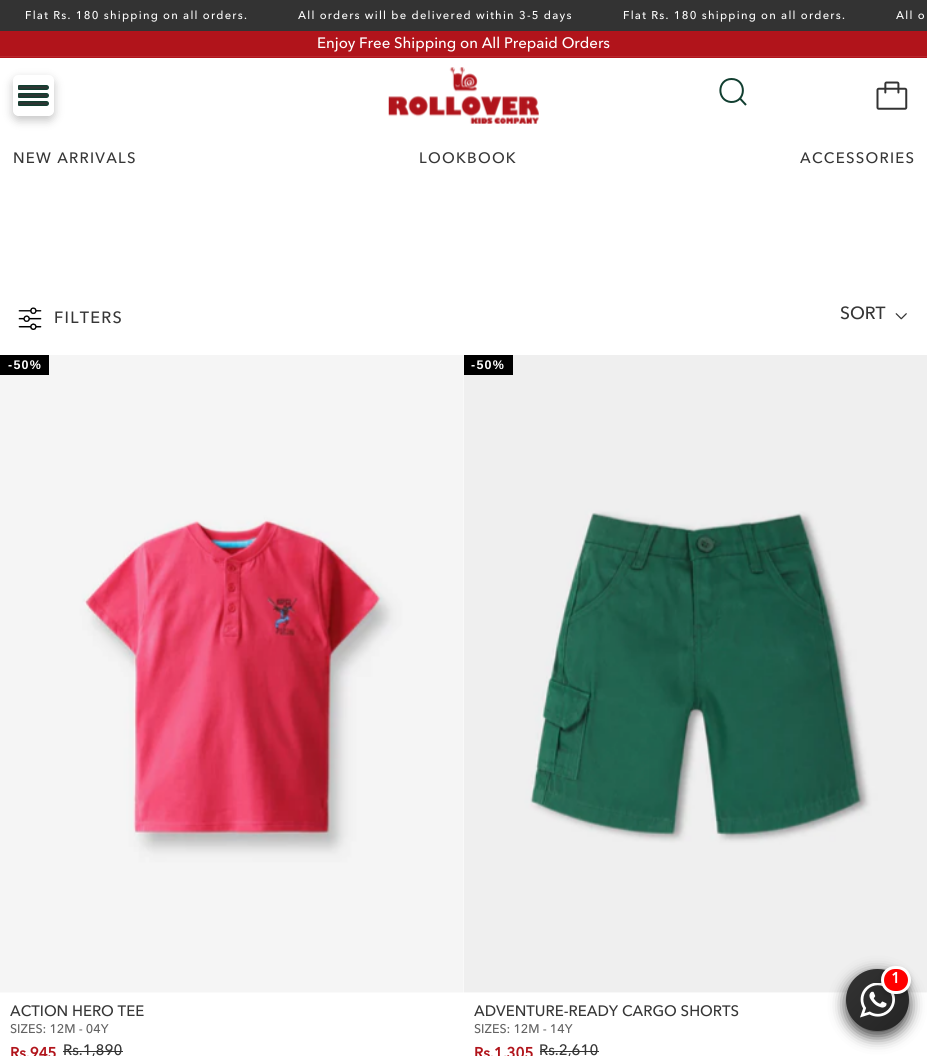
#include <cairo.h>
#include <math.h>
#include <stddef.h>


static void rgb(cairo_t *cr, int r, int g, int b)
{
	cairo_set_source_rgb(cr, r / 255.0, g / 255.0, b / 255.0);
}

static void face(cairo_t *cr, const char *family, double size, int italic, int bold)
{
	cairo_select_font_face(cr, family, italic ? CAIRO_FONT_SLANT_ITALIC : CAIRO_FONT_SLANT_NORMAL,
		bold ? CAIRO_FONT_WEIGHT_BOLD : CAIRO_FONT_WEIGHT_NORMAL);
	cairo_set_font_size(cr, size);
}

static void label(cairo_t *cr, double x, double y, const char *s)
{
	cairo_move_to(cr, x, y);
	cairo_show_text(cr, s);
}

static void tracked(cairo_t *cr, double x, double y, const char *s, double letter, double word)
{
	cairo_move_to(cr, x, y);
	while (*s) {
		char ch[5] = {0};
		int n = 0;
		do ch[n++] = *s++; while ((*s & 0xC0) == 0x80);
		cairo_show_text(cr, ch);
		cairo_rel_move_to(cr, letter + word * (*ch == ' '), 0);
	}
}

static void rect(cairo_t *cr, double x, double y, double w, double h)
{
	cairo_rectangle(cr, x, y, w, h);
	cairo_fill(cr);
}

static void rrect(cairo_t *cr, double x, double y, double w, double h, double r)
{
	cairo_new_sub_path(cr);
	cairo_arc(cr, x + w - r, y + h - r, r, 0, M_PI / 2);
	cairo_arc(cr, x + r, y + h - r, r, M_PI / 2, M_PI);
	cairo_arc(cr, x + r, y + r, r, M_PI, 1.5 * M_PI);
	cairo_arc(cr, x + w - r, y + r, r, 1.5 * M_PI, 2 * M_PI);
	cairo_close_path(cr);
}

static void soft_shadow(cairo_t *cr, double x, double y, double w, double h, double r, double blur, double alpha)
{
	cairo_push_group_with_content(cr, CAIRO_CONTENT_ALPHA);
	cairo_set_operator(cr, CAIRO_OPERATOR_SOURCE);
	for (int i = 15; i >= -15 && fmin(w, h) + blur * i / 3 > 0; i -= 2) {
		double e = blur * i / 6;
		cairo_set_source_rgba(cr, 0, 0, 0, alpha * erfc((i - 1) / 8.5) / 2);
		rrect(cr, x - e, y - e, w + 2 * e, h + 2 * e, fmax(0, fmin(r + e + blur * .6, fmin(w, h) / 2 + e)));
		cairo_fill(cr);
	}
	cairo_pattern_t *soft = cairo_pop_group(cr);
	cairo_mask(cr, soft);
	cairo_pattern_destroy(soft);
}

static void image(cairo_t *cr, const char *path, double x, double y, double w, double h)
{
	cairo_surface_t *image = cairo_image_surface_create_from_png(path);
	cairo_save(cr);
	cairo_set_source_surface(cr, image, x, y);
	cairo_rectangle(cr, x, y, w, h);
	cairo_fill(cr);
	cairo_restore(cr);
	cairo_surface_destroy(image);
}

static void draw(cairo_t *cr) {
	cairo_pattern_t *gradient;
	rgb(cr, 255, 255, 255);
	cairo_paint(cr);
	rgb(cr, 51, 51, 51);
	rect(cr, 0, 0, 927, 31);
	face(cr, "Avenir Next Medium", 11.25, 0, 0);
	rgb(cr, 255, 255, 255);
	tracked(cr, 25, 19, "Flat Rs. 180 shipping on all orders.", 1.25, 0);
	tracked(cr, 298, 19, "All orders will be delivered within 3-5 days", 1.25, 0);
	tracked(cr, 623, 19, "Flat Rs. 180 shipping on all orders.", 1.25, 0);
	tracked(cr, 896, 19, "All o", 1.25, 0);
	rgb(cr, 177, 20, 27);
	rect(cr, 0, 31, 927, 27);
	rgb(cr, 183, 39, 45);
	rect(cr, 0, 56, 927, 1);
	face(cr, "Avenir Next Medium", 15, 0, 0);
	rgb(cr, 255, 255, 255);
	label(cr, 317, 48, "Enjoy Free Shipping on All Prepaid Orders");
	cairo_save(cr);
	cairo_set_fill_rule(cr, CAIRO_FILL_RULE_EVEN_ODD);
	cairo_new_path(cr);
	cairo_move_to(cr, 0, 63);
	cairo_line_to(cr, 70, 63);
	cairo_line_to(cr, 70, 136);
	cairo_line_to(cr, 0, 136);
	cairo_close_path(cr);
	cairo_move_to(cr, 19, 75);
	cairo_line_to(cr, 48, 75);
	cairo_curve_to(cr, 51.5, 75, 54, 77.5, 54, 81);
	cairo_line_to(cr, 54, 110);
	cairo_curve_to(cr, 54, 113.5, 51.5, 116, 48, 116);
	cairo_line_to(cr, 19, 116);
	cairo_curve_to(cr, 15.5, 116, 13, 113.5, 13, 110);
	cairo_line_to(cr, 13, 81);
	cairo_curve_to(cr, 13, 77.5, 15.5, 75, 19, 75);
	cairo_close_path(cr);
	cairo_clip(cr);
	rgb(cr, 0, 0, 0);
	soft_shadow(cr, 13, 79, 41, 41, 6, 5, 0.24);
	cairo_restore(cr);
	cairo_save(cr);
	cairo_rectangle(cr, 18, 80, 31, 31);
	cairo_clip(cr);
	rgb(cr, 51, 51, 51);
	rrect(cr, 17.75, 101.75, 30.5, 3.5, 1.75);
	cairo_fill_preserve(cr);
	rgb(cr, 17, 62, 48);
	cairo_set_line_width(cr, 1.5);
	cairo_stroke(cr);
	rgb(cr, 51, 51, 51);
	rrect(cr, 17.75, 93.75, 30.5, 3.5, 1.75);
	cairo_fill_preserve(cr);
	rgb(cr, 17, 62, 48);
	cairo_stroke(cr);
	rgb(cr, 51, 51, 51);
	rrect(cr, 17.75, 85.75, 30.5, 3.5, 1.75);
	cairo_fill_preserve(cr);
	rgb(cr, 17, 62, 48);
	cairo_stroke(cr);
	cairo_restore(cr);
	image(cr, "image0.png", 388, 67, 151, 57);
	cairo_new_path(cr);
	cairo_move_to(cr, 731.5, 79);
	cairo_curve_to(cr, 747, 79, 746.5, 102.5, 731, 102);
	cairo_curve_to(cr, 716.5, 101, 717, 79, 731.5, 79);
	cairo_close_path(cr);
	cairo_move_to(cr, 740, 98.5);
	cairo_line_to(cr, 746, 105);
	rgb(cr, 17, 62, 48);
	cairo_stroke(cr);
	image(cr, "image1.png", 876, 81, 32, 29);
	rgb(cr, 54, 54, 54);
	tracked(cr, 13, 163, "NEW ARRIVALS", 1.25, 0);
	tracked(cr, 419, 163, "LOOKBOOK", 1.25, 0);
	tracked(cr, 800, 163, "ACCESSORIES", 1.25, 0);
	image(cr, "image2.png", 18, 307, 24, 23);
	face(cr, "Avenir Next Medium", 16.25, 0, 0);
	tracked(cr, 54, 323, "FILTERS", 1.25, 0);
	face(cr, "Avenir Next Medium", 17.5, 0, 0);
	label(cr, 840, 319, "SORT");
	image(cr, "image3.png", 895, 313, 12, 7);
	image(cr, "image4.png", 0, 355, 464, 638);
	rgb(cr, 0, 0, 0);
	rect(cr, 0, 355, 49, 20);
	face(cr, "Liberation Sans", 12.5, 0, 1);
	rgb(cr, 255, 255, 255);
	tracked(cr, 8, 369, "-50%", 1.25, 0);
	face(cr, "Avenir Next Medium", 15, 0, 0);
	rgb(cr, 54, 54, 54);
	label(cr, 10, 1016, "ACTION HERO TEE");
	face(cr, "Avenir Next Medium", 12.5, 0, 0);
	rgb(cr, 98, 98, 98);
	label(cr, 10, 1033, "SIZES: 12M - 04Y");
	face(cr, "Avenir Next", 15, 0, 1);
	rgb(cr, 177, 20, 27);
	label(cr, 10, 1058, "Rs.945");
	face(cr, "Avenir Next Medium", 15, 0, 0);
	rgb(cr, 54, 54, 54);
	label(cr, 63, 1055, "Rs.1,890");
	rgb(cr, 51, 51, 51);
	rect(cr, 63, 1051, 60, 1);
	image(cr, "image5.png", 464, 355, 463, 638);
	rgb(cr, 0, 0, 0);
	rect(cr, 464, 355, 49, 20);
	face(cr, "Liberation Sans", 12.5, 0, 1);
	rgb(cr, 255, 255, 255);
	tracked(cr, 471, 369, "-50%", 1.25, 0);
	face(cr, "Avenir Next Medium", 15, 0, 0);
	rgb(cr, 54, 54, 54);
	label(cr, 474, 1016, "ADVENTURE-READY CARGO SHORTS");
	face(cr, "Avenir Next Medium", 12.5, 0, 0);
	rgb(cr, 98, 98, 98);
	label(cr, 474, 1033, "SIZES: 12M - 14Y");
	face(cr, "Avenir Next", 15, 0, 1);
	rgb(cr, 177, 20, 27);
	label(cr, 474, 1058, "Rs.1,305");
	face(cr, "Avenir Next Medium", 15, 0, 0);
	rgb(cr, 54, 54, 54);
	label(cr, 539, 1055, "Rs.2,610");
	rgb(cr, 51, 51, 51);
	rect(cr, 540, 1051, 59, 1);
	rgb(cr, 51, 51, 51);
	soft_shadow(cr, 846, 974, 63, 62, 31, 7.5, 1);
	gradient = cairo_pattern_create_linear(846, 969, 909, 1031);
	cairo_pattern_add_color_stop_rgba(gradient, 0, 0.2, 0.2, 0.2, 1);
	cairo_pattern_add_color_stop_rgba(gradient, 1, 0.141, 0.141, 0.141, 1);
	cairo_set_source(cr, gradient);
	cairo_pattern_destroy(gradient);
	rrect(cr, 846, 969, 63, 62, 31);
	cairo_fill(cr);
	image(cr, "image6.png", 860, 983, 35, 35);
	rgb(cr, 0, 0, 0);
	soft_shadow(cr, 881, 969, 30, 27, 13.5, 2.5, 0.2);
	rgb(cr, 255, 0, 0);
	rrect(cr, 882.5, 967.5, 27, 25, 12.5);
	cairo_fill_preserve(cr);
	rgb(cr, 255, 255, 255);
	cairo_set_line_width(cr, 3);
	cairo_stroke(cr);
	face(cr, "Avenir Next", 15, 0, 1);
	tracked(cr, 891, 983, "1", 1.25, 0);
}

int main(void) {
	cairo_surface_t *surface = cairo_image_surface_create(CAIRO_FORMAT_RGB24, 927, 1056);
	cairo_t *cr = cairo_create(surface);
	cairo_font_options_t *options = cairo_font_options_create();
	cairo_font_options_set_hint_metrics(options, CAIRO_HINT_METRICS_OFF);
	cairo_font_options_set_hint_style(options, CAIRO_HINT_STYLE_NONE);
	cairo_set_font_options(cr, options);
	cairo_set_miter_limit(cr, 4);
	draw(cr);
	cairo_surface_write_to_png(surface, "render.png");
	cairo_font_options_destroy(options);
	cairo_destroy(cr);
	cairo_surface_destroy(surface);
	return 0;
}
